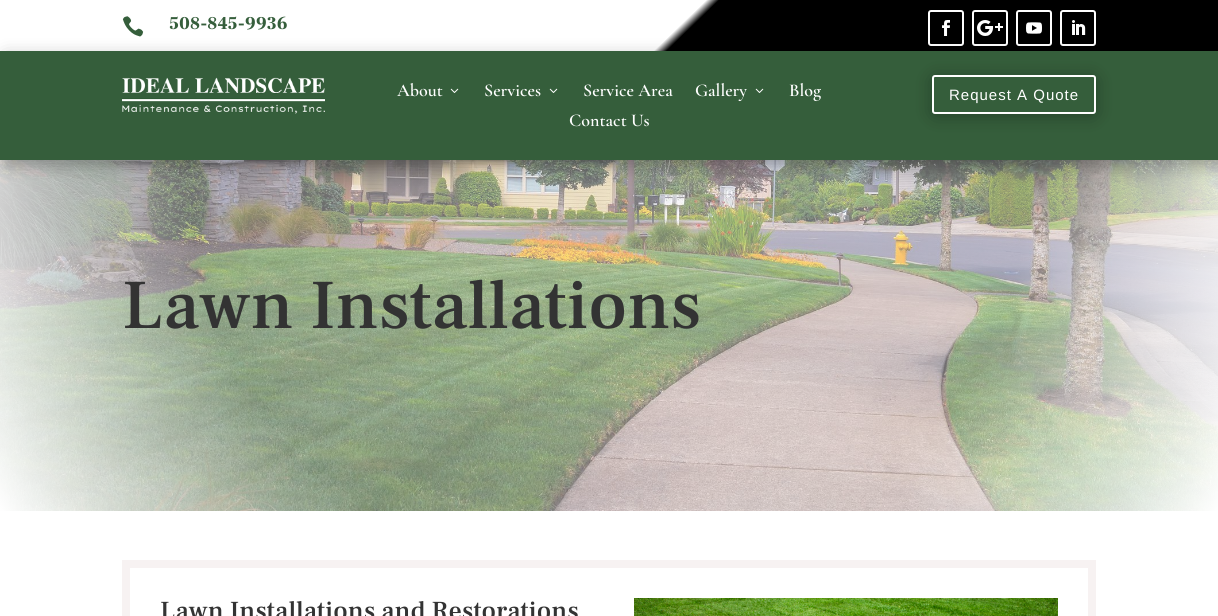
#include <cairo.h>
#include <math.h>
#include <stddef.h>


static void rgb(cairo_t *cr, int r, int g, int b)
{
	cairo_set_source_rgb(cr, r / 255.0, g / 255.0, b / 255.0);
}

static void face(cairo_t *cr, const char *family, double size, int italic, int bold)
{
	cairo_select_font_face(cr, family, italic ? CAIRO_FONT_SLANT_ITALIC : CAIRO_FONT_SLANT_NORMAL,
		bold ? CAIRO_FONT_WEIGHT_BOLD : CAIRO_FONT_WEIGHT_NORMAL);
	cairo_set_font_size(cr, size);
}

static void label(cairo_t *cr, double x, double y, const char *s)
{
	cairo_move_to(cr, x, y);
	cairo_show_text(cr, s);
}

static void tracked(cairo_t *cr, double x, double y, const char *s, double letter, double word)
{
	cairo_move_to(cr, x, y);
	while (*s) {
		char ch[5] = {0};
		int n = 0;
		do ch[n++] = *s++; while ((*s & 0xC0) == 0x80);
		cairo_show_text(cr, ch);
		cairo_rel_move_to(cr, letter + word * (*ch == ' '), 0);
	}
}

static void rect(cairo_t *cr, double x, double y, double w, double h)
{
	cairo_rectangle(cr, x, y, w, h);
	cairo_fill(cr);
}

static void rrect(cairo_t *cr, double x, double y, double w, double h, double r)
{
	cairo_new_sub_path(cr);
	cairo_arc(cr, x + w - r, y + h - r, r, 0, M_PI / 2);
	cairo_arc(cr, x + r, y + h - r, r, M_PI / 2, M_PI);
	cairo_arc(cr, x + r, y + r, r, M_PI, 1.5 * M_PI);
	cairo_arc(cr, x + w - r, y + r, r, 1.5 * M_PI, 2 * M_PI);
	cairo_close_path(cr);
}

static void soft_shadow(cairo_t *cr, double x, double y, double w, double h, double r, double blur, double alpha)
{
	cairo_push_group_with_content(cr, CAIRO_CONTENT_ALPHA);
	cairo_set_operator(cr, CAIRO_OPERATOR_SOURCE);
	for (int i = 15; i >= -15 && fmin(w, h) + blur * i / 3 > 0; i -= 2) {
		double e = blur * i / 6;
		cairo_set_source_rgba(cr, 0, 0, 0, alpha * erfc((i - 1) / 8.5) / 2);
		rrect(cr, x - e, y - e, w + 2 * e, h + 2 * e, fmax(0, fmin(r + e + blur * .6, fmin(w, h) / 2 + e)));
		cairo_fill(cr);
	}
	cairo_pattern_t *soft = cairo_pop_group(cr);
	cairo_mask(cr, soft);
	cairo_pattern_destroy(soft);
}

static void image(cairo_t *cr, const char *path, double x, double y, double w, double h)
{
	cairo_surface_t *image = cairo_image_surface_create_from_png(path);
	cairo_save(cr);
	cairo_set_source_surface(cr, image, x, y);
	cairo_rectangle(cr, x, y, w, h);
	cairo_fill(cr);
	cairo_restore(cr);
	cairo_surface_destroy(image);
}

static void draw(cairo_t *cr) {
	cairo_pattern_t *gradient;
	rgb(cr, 255, 255, 255);
	cairo_paint(cr);
	gradient = cairo_pattern_create_linear(299, -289, 919, 353);
	cairo_pattern_add_color_stop_rgba(gradient, 0.55, 1, 1, 1, 1);
	cairo_pattern_add_color_stop_rgba(gradient, 0.56, 0, 0, 0, 1);
	cairo_set_source(cr, gradient);
	cairo_pattern_destroy(gradient);
	rect(cr, 654, 0, 564, 51);
	image(cr, "image0.png", 122, 16, 22, 21);
	face(cr, "Frank Ruhl Libre Black", 18, 0, 0);
	rgb(cr, 53, 94, 59);
	label(cr, 169, 29, "508-845-9936");
	rrect(cr, 929, 11, 34, 34, 2);
	rgb(cr, 255, 255, 255);
	cairo_stroke(cr);
	image(cr, "image1.png", 942, 20, 8, 16);
	rrect(cr, 973, 11, 34, 34, 2);
	cairo_stroke(cr);
	image(cr, "image2.png", 977, 20, 26, 16);
	rrect(cr, 1017, 11, 34, 34, 2);
	cairo_stroke(cr);
	image(cr, "image3.png", 1026, 22, 16, 12);
	rrect(cr, 1061, 11, 34, 34, 2);
	cairo_stroke(cr);
	image(cr, "image4.png", 1072, 20, 14, 15);
	image(cr, "image7.png", 0, 160, 1218, 351);
	rgb(cr, 0, 0, 0);
	soft_shadow(cr, 6, 57, 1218, 109, 0, 9, 0.3);
	rgb(cr, 53, 94, 59);
	rect(cr, 0, 51, 1218, 109);
	image(cr, "image5.png", 122, 77, 203, 37);
	face(cr, "Cormorant Garamond SemiBold", 18, 0, 0);
	rgb(cr, 255, 255, 255);
	label(cr, 397, 96, "About");
	image(cr, "image6.png", 450, 88, 9, 5);
	label(cr, 484, 96, "Services");
	image(cr, "image6.png", 549, 88, 9, 5);
	label(cr, 583, 96, "Service Area");
	label(cr, 695, 96, "Gallery");
	image(cr, "image6.png", 755, 88, 9, 5);
	label(cr, 789, 96, "Blog");
	label(cr, 569, 126, "Contact Us");
	cairo_save(cr);
	cairo_set_fill_rule(cr, CAIRO_FILL_RULE_EVEN_ODD);
	cairo_new_path(cr);
	cairo_move_to(cr, 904, 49);
	cairo_line_to(cr, 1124, 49);
	cairo_line_to(cr, 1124, 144);
	cairo_line_to(cr, 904, 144);
	cairo_close_path(cr);
	cairo_move_to(cr, 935, 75);
	cairo_line_to(cr, 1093, 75);
	cairo_curve_to(cr, 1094.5, 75, 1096, 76.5, 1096, 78);
	cairo_line_to(cr, 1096, 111);
	cairo_curve_to(cr, 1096, 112.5, 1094.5, 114, 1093, 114);
	cairo_line_to(cr, 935, 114);
	cairo_curve_to(cr, 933.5, 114, 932, 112.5, 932, 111);
	cairo_line_to(cr, 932, 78);
	cairo_curve_to(cr, 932, 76.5, 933.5, 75, 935, 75);
	cairo_close_path(cr);
	cairo_clip(cr);
	rgb(cr, 0, 0, 0);
	soft_shadow(cr, 932, 77, 164, 39, 3, 9, 0.3);
	cairo_restore(cr);
	rrect(cr, 933, 76, 162, 37, 2);
	cairo_stroke(cr);
	face(cr, "Liberation Sans", 15, 0, 0);
	tracked(cr, 949, 100, "Request A Quote", 1, 0);
	face(cr, "Frank Ruhl Libre Medium", 70, 0, 0);
	rgb(cr, 51, 51, 51);
	label(cr, 122, 328, "Lawn Installations");
	cairo_rectangle(cr, 126, 564, 966, 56);
	rgb(cr, 247, 242, 242);
	cairo_set_line_width(cr, 8);
	cairo_stroke(cr);
	face(cr, "Frank Ruhl Libre Medium", 26, 0, 0);
	rgb(cr, 51, 51, 51);
	label(cr, 160, 619, "Lawn Installations and Restorations");
	image(cr, "image8.png", 634, 598, 424, 18);
}

int main(void) {
	cairo_surface_t *surface = cairo_image_surface_create(CAIRO_FORMAT_RGB24, 1218, 616);
	cairo_t *cr = cairo_create(surface);
	cairo_font_options_t *options = cairo_font_options_create();
	cairo_font_options_set_hint_metrics(options, CAIRO_HINT_METRICS_OFF);
	cairo_font_options_set_hint_style(options, CAIRO_HINT_STYLE_NONE);
	cairo_set_font_options(cr, options);
	cairo_set_miter_limit(cr, 4);
	draw(cr);
	cairo_surface_write_to_png(surface, "render.png");
	cairo_font_options_destroy(options);
	cairo_destroy(cr);
	cairo_surface_destroy(surface);
	return 0;
}
